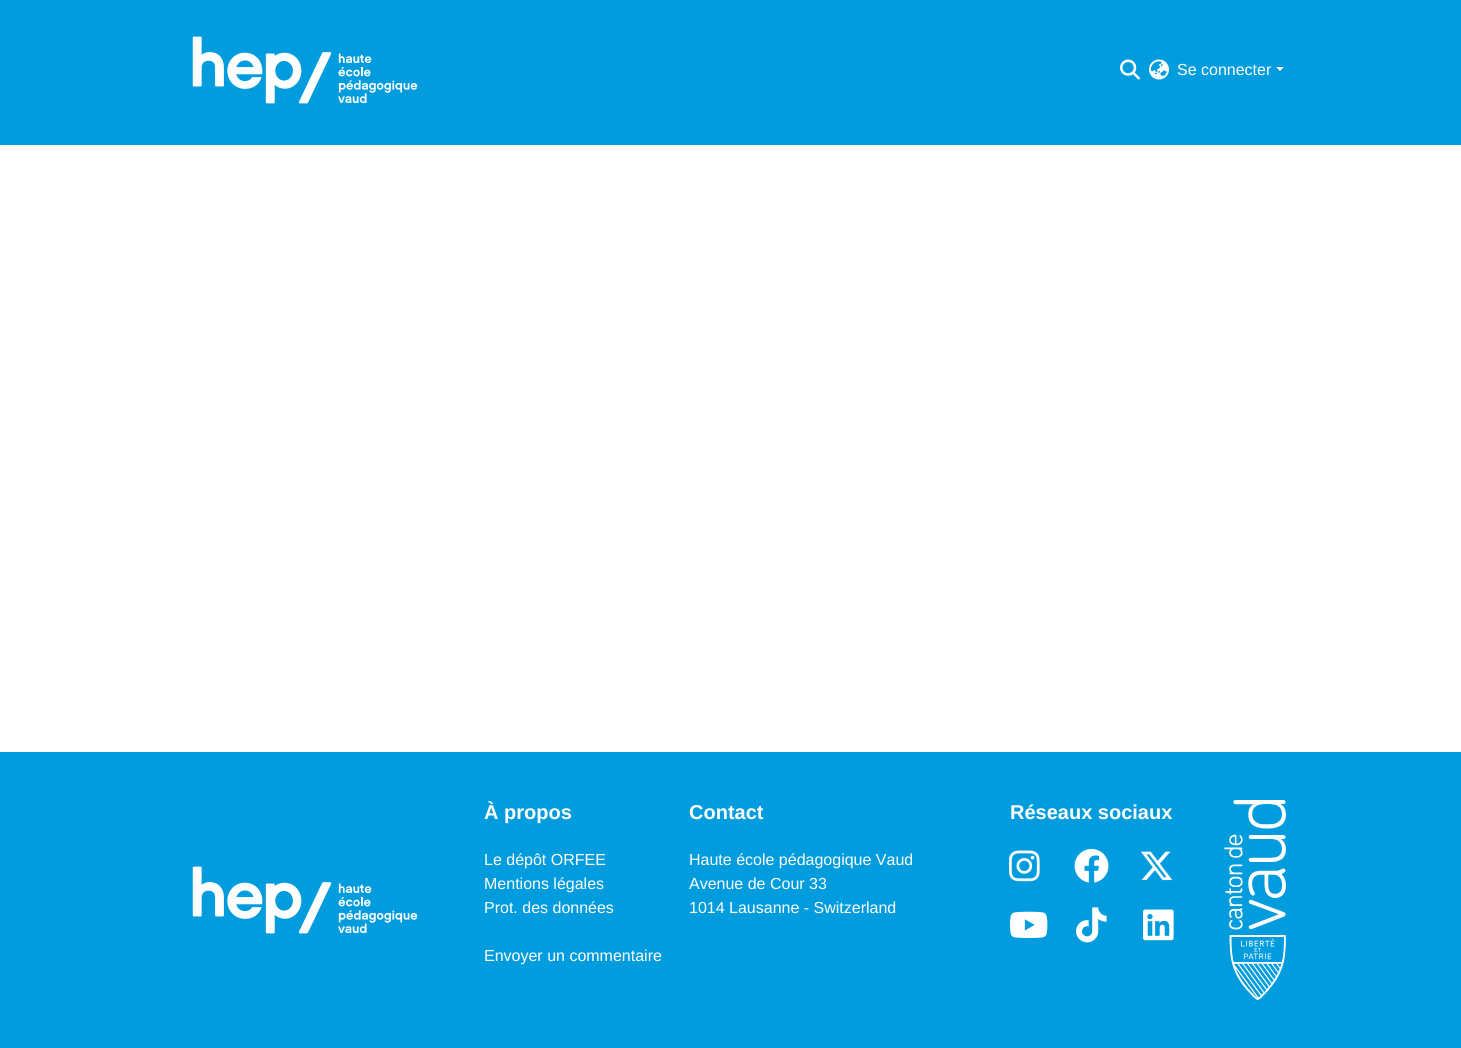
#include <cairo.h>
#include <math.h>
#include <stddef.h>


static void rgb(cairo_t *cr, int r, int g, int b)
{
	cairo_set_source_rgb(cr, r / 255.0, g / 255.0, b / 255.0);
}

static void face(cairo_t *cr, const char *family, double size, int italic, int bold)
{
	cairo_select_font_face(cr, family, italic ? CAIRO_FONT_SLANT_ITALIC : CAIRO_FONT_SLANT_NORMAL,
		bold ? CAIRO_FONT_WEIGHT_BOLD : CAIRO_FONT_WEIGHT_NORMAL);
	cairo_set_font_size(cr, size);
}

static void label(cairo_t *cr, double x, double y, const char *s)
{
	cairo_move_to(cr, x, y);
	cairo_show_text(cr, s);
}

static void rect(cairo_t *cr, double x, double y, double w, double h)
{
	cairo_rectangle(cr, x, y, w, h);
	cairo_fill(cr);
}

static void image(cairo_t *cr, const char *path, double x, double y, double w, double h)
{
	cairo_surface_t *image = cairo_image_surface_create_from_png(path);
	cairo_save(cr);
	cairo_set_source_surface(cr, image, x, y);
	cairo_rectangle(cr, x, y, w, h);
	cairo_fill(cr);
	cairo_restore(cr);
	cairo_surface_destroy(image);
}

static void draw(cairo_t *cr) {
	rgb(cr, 255, 255, 255);
	cairo_paint(cr);
	rgb(cr, 0, 156, 222);
	rect(cr, 0, 0, 1461, 145);
	image(cr, "image0.png", 192, 36, 226, 68);
	image(cr, "image1.png", 1120, 59, 20, 21);
	image(cr, "image2.png", 1149, 59, 20, 21);
	face(cr, "Liberation Sans", 16, 0, 0);
	rgb(cr, 255, 255, 255);
	label(cr, 1177, 75, "Se connecter");
	cairo_new_path(cr);
	cairo_move_to(cr, 1276, 67);
	cairo_line_to(cr, 1284, 67);
	cairo_line_to(cr, 1280, 71);
	cairo_close_path(cr);
	cairo_fill(cr);
	rgb(cr, 0, 156, 222);
	rect(cr, 0, 752, 1461, 296);
	image(cr, "image0.png", 192, 866, 226, 68);
	face(cr, "Liberation Sans", 20, 0, 1);
	rgb(cr, 255, 255, 255);
	label(cr, 484, 819, "À propos");
	face(cr, "Liberation Sans", 16, 0, 0);
	label(cr, 484, 865, "Le dépôt ORFEE");
	label(cr, 484, 889, "Mentions légales");
	label(cr, 484, 913, "Prot. des données");
	label(cr, 484, 961, "Envoyer un commentaire");
	face(cr, "Liberation Sans", 20, 0, 1);
	label(cr, 689, 819, "Contact");
	face(cr, "Liberation Sans", 16, 0, 0);
	label(cr, 689, 865, "Haute école pédagogique Vaud");
	label(cr, 689, 889, "Avenue de Cour 33");
	label(cr, 689, 913, "1014 Lausanne - Switzerland");
	face(cr, "Liberation Sans", 20, 0, 1);
	label(cr, 1010, 819, "Réseaux sociaux");
	image(cr, "image3.png", 1009, 850, 31, 32);
	image(cr, "image4.png", 1074, 848, 35, 35);
	image(cr, "image5.png", 1141, 851, 32, 30);
	image(cr, "image6.png", 1010, 911, 38, 27);
	image(cr, "image7.png", 1076, 907, 31, 36);
	image(cr, "image8.png", 1143, 909, 31, 32);
	image(cr, "image9.png", 1224, 800, 62, 200);
}

int main(void) {
	cairo_surface_t *surface = cairo_image_surface_create(CAIRO_FORMAT_RGB24, 1461, 1048);
	cairo_t *cr = cairo_create(surface);
	cairo_font_options_t *options = cairo_font_options_create();
	cairo_font_options_set_hint_metrics(options, CAIRO_HINT_METRICS_OFF);
	cairo_font_options_set_hint_style(options, CAIRO_HINT_STYLE_NONE);
	cairo_set_font_options(cr, options);
	cairo_set_miter_limit(cr, 4);
	draw(cr);
	cairo_surface_write_to_png(surface, "render.png");
	cairo_font_options_destroy(options);
	cairo_destroy(cr);
	cairo_surface_destroy(surface);
	return 0;
}
